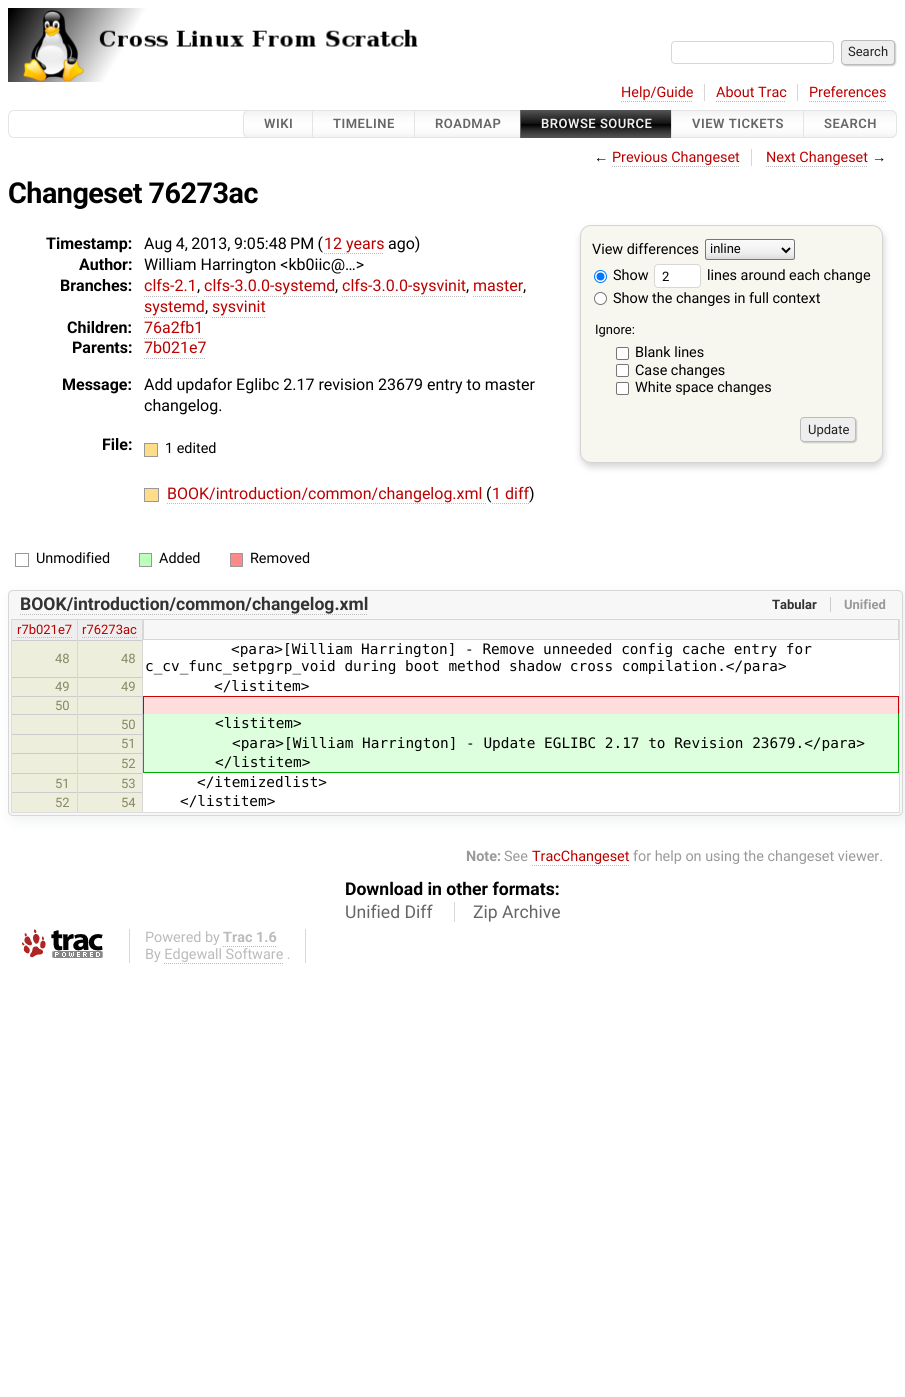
#include <cairo.h>
#include <math.h>
#include <stddef.h>


static void rgb(cairo_t *cr, int r, int g, int b)
{
	cairo_set_source_rgb(cr, r / 255.0, g / 255.0, b / 255.0);
}

static void face(cairo_t *cr, const char *family, double size, int italic, int bold)
{
	cairo_select_font_face(cr, family, italic ? CAIRO_FONT_SLANT_ITALIC : CAIRO_FONT_SLANT_NORMAL,
		bold ? CAIRO_FONT_WEIGHT_BOLD : CAIRO_FONT_WEIGHT_NORMAL);
	cairo_set_font_size(cr, size);
}

static void label(cairo_t *cr, double x, double y, const char *s)
{
	cairo_move_to(cr, x, y);
	cairo_show_text(cr, s);
}

static void tracked(cairo_t *cr, double x, double y, const char *s, double letter, double word)
{
	cairo_move_to(cr, x, y);
	while (*s) {
		char ch[5] = {0};
		int n = 0;
		do ch[n++] = *s++; while ((*s & 0xC0) == 0x80);
		cairo_show_text(cr, ch);
		cairo_rel_move_to(cr, letter + word * (*ch == ' '), 0);
	}
}

static void rect(cairo_t *cr, double x, double y, double w, double h)
{
	cairo_rectangle(cr, x, y, w, h);
	cairo_fill(cr);
}

static void rrect(cairo_t *cr, double x, double y, double w, double h, double r)
{
	cairo_new_sub_path(cr);
	cairo_arc(cr, x + w - r, y + h - r, r, 0, M_PI / 2);
	cairo_arc(cr, x + r, y + h - r, r, M_PI / 2, M_PI);
	cairo_arc(cr, x + r, y + r, r, M_PI, 1.5 * M_PI);
	cairo_arc(cr, x + w - r, y + r, r, 1.5 * M_PI, 2 * M_PI);
	cairo_close_path(cr);
}

static void soft_shadow(cairo_t *cr, double x, double y, double w, double h, double r, double blur, double alpha)
{
	cairo_push_group_with_content(cr, CAIRO_CONTENT_ALPHA);
	cairo_set_operator(cr, CAIRO_OPERATOR_SOURCE);
	for (int i = 15; i >= -15 && fmin(w, h) + blur * i / 3 > 0; i -= 2) {
		double e = blur * i / 6;
		cairo_set_source_rgba(cr, 0, 0, 0, alpha * erfc((i - 1) / 8.5) / 2);
		rrect(cr, x - e, y - e, w + 2 * e, h + 2 * e, fmax(0, fmin(r + e + blur * .6, fmin(w, h) / 2 + e)));
		cairo_fill(cr);
	}
	cairo_pattern_t *soft = cairo_pop_group(cr);
	cairo_mask(cr, soft);
	cairo_pattern_destroy(soft);
}

static void image(cairo_t *cr, const char *path, double x, double y, double w, double h)
{
	cairo_surface_t *image = cairo_image_surface_create_from_png(path);
	cairo_save(cr);
	cairo_set_source_surface(cr, image, x, y);
	cairo_rectangle(cr, x, y, w, h);
	cairo_fill(cr);
	cairo_restore(cr);
	cairo_surface_destroy(image);
}

static void draw(cairo_t *cr) {
	cairo_pattern_t *gradient;
	rgb(cr, 255, 255, 255);
	cairo_paint(cr);
	image(cr, "image0.png", 8, 8, 410, 74);
	rrect(cr, 671.5, 41.5, 162, 22, 3.5);
	rgb(cr, 215, 215, 215);
	cairo_set_line_width(cr, 1);
	cairo_stroke(cr);
	rgb(cr, 204, 204, 204);
	soft_shadow(cr, 842, 41, 54, 25, 4, 0.5, 1);
	rgb(cr, 238, 238, 238);
	rrect(cr, 841.5, 40.5, 53, 24, 3.5);
	cairo_fill_preserve(cr);
	rgb(cr, 187, 187, 187);
	cairo_stroke(cr);
	face(cr, "Roboto", 13, 0, 0);
	rgb(cr, 34, 34, 34);
	label(cr, 848, 56, "Search");
	rgb(cr, 215, 215, 215);
	rect(cr, 704, 84, 1, 17);
	face(cr, "Roboto", 14.4, 0, 0);
	rgb(cr, 187, 0, 0);
	label(cr, 621, 97, "Help/Guide");
	cairo_new_path(cr);
	cairo_move_to(cr, 621, 101.5);
	cairo_line_to(cr, 693, 101.5);
	rgb(cr, 187, 187, 187);
	cairo_set_dash(cr, (double[]){1, 1}, 2, 0);
	cairo_stroke(cr);
	rgb(cr, 215, 215, 215);
	rect(cr, 797, 84, 1, 17);
	rgb(cr, 187, 0, 0);
	label(cr, 716, 97, "About Trac");
	cairo_new_path(cr);
	cairo_move_to(cr, 716, 101.5);
	cairo_line_to(cr, 786, 101.5);
	rgb(cr, 187, 187, 187);
	cairo_stroke(cr);
	rgb(cr, 187, 0, 0);
	label(cr, 809, 97, "Preferences");
	cairo_new_path(cr);
	cairo_move_to(cr, 809, 101.5);
	cairo_line_to(cr, 886, 101.5);
	rgb(cr, 187, 187, 187);
	cairo_stroke(cr);
	rrect(cr, 8.5, 110.5, 888, 27, 5.5);
	rgb(cr, 228, 228, 228);
	cairo_set_dash(cr, NULL, 0, 0);
	cairo_stroke(cr);
	cairo_save(cr);
	cairo_new_path(cr);
	cairo_move_to(cr, 249, 110);
	cairo_line_to(cr, 314, 110);
	cairo_line_to(cr, 314, 138);
	cairo_line_to(cr, 249, 138);
	cairo_curve_to(cr, 245.5, 138, 243, 135.5, 243, 132);
	cairo_line_to(cr, 243, 116);
	cairo_curve_to(cr, 243, 112.5, 245.5, 110, 249, 110);
	cairo_close_path(cr);
	cairo_clip(cr);
	gradient = cairo_pattern_create_linear(279, 111, 279, 137);
	cairo_pattern_add_color_stop_rgba(gradient, 0, 0.949, 0.949, 0.949, 1);
	cairo_pattern_add_color_stop_rgba(gradient, 0.25, 0.98, 0.98, 0.98, 1);
	cairo_pattern_add_color_stop_rgba(gradient, 0.49, 0.996, 0.996, 0.996, 1);
	cairo_pattern_add_color_stop_rgba(gradient, 0.51, 1, 1, 1, 1);
	cairo_pattern_add_color_stop_rgba(gradient, 0.85, 0.98, 0.98, 0.98, 1);
	cairo_pattern_add_color_stop_rgba(gradient, 1, 0.949, 0.949, 0.949, 1);
	cairo_set_source(cr, gradient);
	cairo_pattern_destroy(gradient);
	rect(cr, 243, 111, 69, 26);
	cairo_restore(cr);
	cairo_new_path(cr);
	cairo_move_to(cr, 249, 110.5);
	cairo_line_to(cr, 313.5, 110.5);
	cairo_line_to(cr, 313.5, 137.5);
	cairo_line_to(cr, 249, 137.5);
	cairo_curve_to(cr, 246, 137.5, 243.5, 135, 243.5, 132);
	cairo_line_to(cr, 243.5, 116);
	cairo_curve_to(cr, 243.5, 113, 246, 110.5, 249, 110.5);
	cairo_close_path(cr);
	cairo_stroke(cr);
	face(cr, "Roboto SemiBold", 13, 0, 0);
	rgb(cr, 102, 102, 102);
	tracked(cr, 264, 128, "WIKI", 0.5, 0);
	gradient = cairo_pattern_create_linear(364, 111, 364, 137);
	cairo_pattern_add_color_stop_rgba(gradient, 0, 0.949, 0.949, 0.949, 1);
	cairo_pattern_add_color_stop_rgba(gradient, 0.25, 0.98, 0.98, 0.98, 1);
	cairo_pattern_add_color_stop_rgba(gradient, 0.49, 0.996, 0.996, 0.996, 1);
	cairo_pattern_add_color_stop_rgba(gradient, 0.51, 1, 1, 1, 1);
	cairo_pattern_add_color_stop_rgba(gradient, 0.85, 0.98, 0.98, 0.98, 1);
	cairo_pattern_add_color_stop_rgba(gradient, 1, 0.949, 0.949, 0.949, 1);
	cairo_set_source(cr, gradient);
	cairo_pattern_destroy(gradient);
	rect(cr, 313, 111, 101, 26);
	cairo_rectangle(cr, 312.5, 110.5, 102, 27);
	rgb(cr, 228, 228, 228);
	cairo_stroke(cr);
	rgb(cr, 102, 102, 102);
	tracked(cr, 333, 128, "TIMELINE", 0.5, 0);
	gradient = cairo_pattern_create_linear(468, 111, 468, 137);
	cairo_pattern_add_color_stop_rgba(gradient, 0, 0.949, 0.949, 0.949, 1);
	cairo_pattern_add_color_stop_rgba(gradient, 0.25, 0.98, 0.98, 0.98, 1);
	cairo_pattern_add_color_stop_rgba(gradient, 0.49, 0.996, 0.996, 0.996, 1);
	cairo_pattern_add_color_stop_rgba(gradient, 0.51, 1, 1, 1, 1);
	cairo_pattern_add_color_stop_rgba(gradient, 0.85, 0.98, 0.98, 0.98, 1);
	cairo_pattern_add_color_stop_rgba(gradient, 1, 0.949, 0.949, 0.949, 1);
	cairo_set_source(cr, gradient);
	cairo_pattern_destroy(gradient);
	rect(cr, 415, 111, 105, 26);
	cairo_rectangle(cr, 414.5, 110.5, 107, 27);
	rgb(cr, 228, 228, 228);
	cairo_stroke(cr);
	rgb(cr, 102, 102, 102);
	tracked(cr, 435, 128, "ROADMAP", 0.5, 0);
	cairo_rectangle(cr, 520.5, 110.5, 152, 27);
	cairo_stroke(cr);
	gradient = cairo_pattern_create_linear(597, 110, 597, 138);
	cairo_pattern_add_color_stop_rgba(gradient, 0, 0.333, 0.333, 0.333, 1);
	cairo_pattern_add_color_stop_rgba(gradient, 0.25, 0.2, 0.2, 0.2, 1);
	cairo_pattern_add_color_stop_rgba(gradient, 0.49, 0.067, 0.067, 0.067, 1);
	cairo_pattern_add_color_stop_rgba(gradient, 0.51, 0, 0, 0, 1);
	cairo_pattern_add_color_stop_rgba(gradient, 0.75, 0.2, 0.2, 0.2, 1);
	cairo_pattern_add_color_stop_rgba(gradient, 1, 0.333, 0.333, 0.333, 1);
	cairo_set_source(cr, gradient);
	cairo_pattern_destroy(gradient);
	rect(cr, 521, 110, 150, 28);
	rgb(cr, 238, 238, 238);
	tracked(cr, 541, 128, "BROWSE SOURCE", 0.5, 0);
	gradient = cairo_pattern_create_linear(738, 111, 738, 137);
	cairo_pattern_add_color_stop_rgba(gradient, 0, 0.949, 0.949, 0.949, 1);
	cairo_pattern_add_color_stop_rgba(gradient, 0.25, 0.98, 0.98, 0.98, 1);
	cairo_pattern_add_color_stop_rgba(gradient, 0.49, 0.996, 0.996, 0.996, 1);
	cairo_pattern_add_color_stop_rgba(gradient, 0.51, 1, 1, 1, 1);
	cairo_pattern_add_color_stop_rgba(gradient, 0.85, 0.98, 0.98, 0.98, 1);
	cairo_pattern_add_color_stop_rgba(gradient, 1, 0.949, 0.949, 0.949, 1);
	cairo_set_source(cr, gradient);
	cairo_pattern_destroy(gradient);
	rect(cr, 672, 111, 131, 26);
	cairo_rectangle(cr, 671.5, 110.5, 132, 27);
	rgb(cr, 228, 228, 228);
	cairo_stroke(cr);
	rgb(cr, 102, 102, 102);
	tracked(cr, 692, 128, "VIEW TICKETS", 0.5, 0);
	cairo_save(cr);
	cairo_new_path(cr);
	cairo_move_to(cr, 803, 110);
	cairo_line_to(cr, 891, 110);
	cairo_curve_to(cr, 894.5, 110, 897, 112.5, 897, 116);
	cairo_line_to(cr, 897, 132);
	cairo_curve_to(cr, 897, 135.5, 894.5, 138, 891, 138);
	cairo_line_to(cr, 803, 138);
	cairo_close_path(cr);
	cairo_clip(cr);
	gradient = cairo_pattern_create_linear(850, 111, 850, 137);
	cairo_pattern_add_color_stop_rgba(gradient, 0, 0.949, 0.949, 0.949, 1);
	cairo_pattern_add_color_stop_rgba(gradient, 0.25, 0.98, 0.98, 0.98, 1);
	cairo_pattern_add_color_stop_rgba(gradient, 0.49, 0.996, 0.996, 0.996, 1);
	cairo_pattern_add_color_stop_rgba(gradient, 0.51, 1, 1, 1, 1);
	cairo_pattern_add_color_stop_rgba(gradient, 0.85, 0.98, 0.98, 0.98, 1);
	cairo_pattern_add_color_stop_rgba(gradient, 1, 0.949, 0.949, 0.949, 1);
	cairo_set_source(cr, gradient);
	cairo_pattern_destroy(gradient);
	rect(cr, 804, 111, 93, 26);
	cairo_restore(cr);
	cairo_new_path(cr);
	cairo_move_to(cr, 803.5, 110.5);
	cairo_line_to(cr, 891, 110.5);
	cairo_curve_to(cr, 894, 110.5, 896.5, 113, 896.5, 116);
	cairo_line_to(cr, 896.5, 132);
	cairo_curve_to(cr, 896.5, 135, 894, 137.5, 891, 137.5);
	cairo_line_to(cr, 803.5, 137.5);
	cairo_close_path(cr);
	rgb(cr, 228, 228, 228);
	cairo_stroke(cr);
	rgb(cr, 102, 102, 102);
	tracked(cr, 824, 128, "SEARCH", 0.5, 0);
	rgb(cr, 215, 215, 215);
	rect(cr, 751, 149, 1, 17);
	face(cr, "Liberation Sans", 14.4, 0, 0);
	rgb(cr, 0, 0, 0);
	label(cr, 594, 162, "←");
	face(cr, "Roboto", 14.4, 0, 0);
	rgb(cr, 187, 0, 0);
	label(cr, 612, 162, "Previous Changeset");
	cairo_new_path(cr);
	cairo_move_to(cr, 612, 166.5);
	cairo_line_to(cr, 740, 166.5);
	rgb(cr, 187, 187, 187);
	cairo_set_dash(cr, (double[]){1, 1}, 2, 0);
	cairo_stroke(cr);
	rgb(cr, 187, 0, 0);
	label(cr, 766, 162, "Next Changeset");
	cairo_new_path(cr);
	cairo_move_to(cr, 766, 166.5);
	cairo_line_to(cr, 868, 166.5);
	rgb(cr, 187, 187, 187);
	cairo_stroke(cr);
	face(cr, "Liberation Sans", 14.4, 0, 0);
	rgb(cr, 0, 0, 0);
	label(cr, 872, 162, "→");
	face(cr, "Roboto", 28.75, 0, 1);
	tracked(cr, 8, 203, "Changeset 76273ac", -0.5, 0);
	face(cr, "Roboto", 16, 0, 1);
	label(cr, 46, 249, "Timestamp:");
	face(cr, "Roboto", 16, 0, 0);
	tracked(cr, 144, 249, "Aug 4, 2013, 9:05:48 PM (", 0, -0.5);
	rgb(cr, 187, 0, 0);
	label(cr, 324, 249, "12 years");
	cairo_new_path(cr);
	cairo_move_to(cr, 324, 253.5);
	cairo_line_to(cr, 384, 253.5);
	rgb(cr, 187, 187, 187);
	cairo_stroke(cr);
	rgb(cr, 0, 0, 0);
	label(cr, 388, 249, "ago)");
	face(cr, "Roboto", 16, 0, 1);
	label(cr, 79, 270, "Author:");
	face(cr, "Roboto", 16, 0, 0);
	label(cr, 144, 270, "William Harrington <kb0iic@…>");
	face(cr, "Roboto", 16, 0, 1);
	label(cr, 60, 291, "Branches:");
	face(cr, "Roboto", 16, 0, 0);
	rgb(cr, 187, 0, 0);
	label(cr, 144, 291, "clfs-2.1");
	cairo_new_path(cr);
	cairo_move_to(cr, 144, 296.5);
	cairo_line_to(cr, 197, 296.5);
	rgb(cr, 187, 187, 187);
	cairo_stroke(cr);
	rgb(cr, 0, 0, 0);
	label(cr, 197, 291, ",");
	rgb(cr, 187, 0, 0);
	label(cr, 204, 291, "clfs-3.0.0-systemd");
	cairo_new_path(cr);
	cairo_move_to(cr, 204, 296.5);
	cairo_line_to(cr, 335, 296.5);
	rgb(cr, 187, 187, 187);
	cairo_stroke(cr);
	rgb(cr, 0, 0, 0);
	label(cr, 335, 291, ",");
	rgb(cr, 187, 0, 0);
	label(cr, 342, 291, "clfs-3.0.0-sysvinit");
	cairo_new_path(cr);
	cairo_move_to(cr, 342, 296.5);
	cairo_line_to(cr, 466, 296.5);
	rgb(cr, 187, 187, 187);
	cairo_stroke(cr);
	rgb(cr, 0, 0, 0);
	label(cr, 466, 291, ",");
	rgb(cr, 187, 0, 0);
	label(cr, 473, 291, "master");
	cairo_new_path(cr);
	cairo_move_to(cr, 473, 296.5);
	cairo_line_to(cr, 523, 296.5);
	rgb(cr, 187, 187, 187);
	cairo_stroke(cr);
	rgb(cr, 0, 0, 0);
	label(cr, 523, 291, ",");
	rgb(cr, 187, 0, 0);
	label(cr, 144, 312, "systemd");
	cairo_new_path(cr);
	cairo_move_to(cr, 144, 317.5);
	cairo_line_to(cr, 205, 317.5);
	rgb(cr, 187, 187, 187);
	cairo_stroke(cr);
	rgb(cr, 0, 0, 0);
	label(cr, 205, 312, ",");
	rgb(cr, 187, 0, 0);
	label(cr, 212, 312, "sysvinit");
	cairo_new_path(cr);
	cairo_move_to(cr, 212, 317.5);
	cairo_line_to(cr, 266, 317.5);
	rgb(cr, 187, 187, 187);
	cairo_stroke(cr);
	face(cr, "Roboto", 16, 0, 1);
	rgb(cr, 0, 0, 0);
	label(cr, 67, 333, "Children:");
	face(cr, "Roboto", 16, 0, 0);
	rgb(cr, 187, 0, 0);
	label(cr, 144, 333, "76a2fb1");
	cairo_new_path(cr);
	cairo_move_to(cr, 144, 338.5);
	cairo_line_to(cr, 203, 338.5);
	rgb(cr, 187, 187, 187);
	cairo_stroke(cr);
	face(cr, "Roboto", 16, 0, 1);
	rgb(cr, 0, 0, 0);
	label(cr, 72, 353, "Parents:");
	face(cr, "Roboto", 16, 0, 0);
	rgb(cr, 187, 0, 0);
	label(cr, 144, 353, "7b021e7");
	cairo_new_path(cr);
	cairo_move_to(cr, 144, 358.5);
	cairo_line_to(cr, 206, 358.5);
	rgb(cr, 187, 187, 187);
	cairo_stroke(cr);
	face(cr, "Roboto", 16, 0, 1);
	rgb(cr, 0, 0, 0);
	label(cr, 62, 390, "Message:");
	face(cr, "Roboto", 16, 0, 0);
	label(cr, 144, 390, "Add updafor Eglibc 2.17 revision 23679 entry to master");
	label(cr, 144, 411, "changelog.");
	face(cr, "Roboto", 16, 0, 1);
	label(cr, 102, 450, "File:");
	rgb(cr, 255, 221, 136);
	cairo_rectangle(cr, 144.5, 443.5, 13, 13);
	cairo_fill_preserve(cr);
	rgb(cr, 153, 153, 153);
	cairo_set_dash(cr, NULL, 0, 0);
	cairo_stroke(cr);
	face(cr, "Roboto", 14.4, 0, 0);
	rgb(cr, 0, 0, 0);
	label(cr, 165, 453, "1 edited");
	rgb(cr, 255, 221, 136);
	cairo_rectangle(cr, 144.5, 488.5, 14, 13);
	cairo_fill_preserve(cr);
	rgb(cr, 153, 153, 153);
	cairo_stroke(cr);
	face(cr, "Roboto", 16, 0, 0);
	rgb(cr, 187, 0, 0);
	label(cr, 167, 499, "BOOK/introduction/common/changelog.xml");
	cairo_new_path(cr);
	cairo_move_to(cr, 167, 503.5);
	cairo_line_to(cr, 486, 503.5);
	rgb(cr, 187, 187, 187);
	cairo_set_dash(cr, (double[]){1, 1}, 2, 0);
	cairo_stroke(cr);
	rgb(cr, 0, 0, 0);
	label(cr, 486, 499, "(");
	rgb(cr, 187, 0, 0);
	label(cr, 492, 499, "1 diff");
	cairo_new_path(cr);
	cairo_move_to(cr, 492, 503.5);
	cairo_line_to(cr, 529, 503.5);
	rgb(cr, 187, 187, 187);
	cairo_stroke(cr);
	rgb(cr, 0, 0, 0);
	label(cr, 529, 499, ")");
	rgb(cr, 212, 212, 212);
	soft_shadow(cr, 581, 229, 303, 238, 11, 3.5, 1);
	rgb(cr, 247, 247, 240);
	rrect(cr, 580.5, 225.5, 302, 237, 10.5);
	cairo_fill_preserve(cr);
	rgb(cr, 212, 212, 212);
	cairo_set_dash(cr, NULL, 0, 0);
	cairo_stroke(cr);
	face(cr, "Roboto", 14.4, 0, 0);
	rgb(cr, 0, 0, 0);
	label(cr, 592, 254, "View differences");
	cairo_save(cr);
	rrect(cr, 705, 239, 90, 21, 2.5);
	cairo_clip(cr);
	gradient = cairo_pattern_create_linear(750, 259, 750, 240);
	cairo_pattern_add_color_stop_rgba(gradient, 0, 0.859, 0.859, 0.859, 1);
	cairo_pattern_add_color_stop_rgba(gradient, 0.3, 0.933, 0.933, 0.933, 1);
	cairo_pattern_add_color_stop_rgba(gradient, 1, 0.984, 0.984, 0.984, 1);
	cairo_set_source(cr, gradient);
	cairo_pattern_destroy(gradient);
	rect(cr, 705, 240, 90, 19);
	cairo_restore(cr);
	rrect(cr, 705.5, 239.5, 89, 20, 2);
	rgb(cr, 118, 118, 118);
	cairo_stroke(cr);
	cairo_new_path(cr);
	cairo_move_to(cr, 782, 248);
	cairo_line_to(cr, 786, 252);
	cairo_line_to(cr, 790, 248);
	rgb(cr, 0, 0, 0);
	cairo_set_line_width(cr, 2);
	cairo_stroke(cr);
	face(cr, "Roboto", 13, 0, 0);
	label(cr, 710, 253, "inline");
	rgb(cr, 255, 255, 255);
	cairo_new_path(cr);
	cairo_arc(cr, 600.5, 276.5, 6, 0, 2 * M_PI);
	cairo_fill_preserve(cr);
	rgb(cr, 0, 117, 255);
	cairo_set_line_width(cr, 1);
	cairo_stroke(cr);
	cairo_arc(cr, 600.5, 276.5, 4, 0, 2 * M_PI);
	cairo_fill(cr);
	face(cr, "Roboto", 14.4, 0, 0);
	rgb(cr, 0, 0, 0);
	label(cr, 613, 280, "Show");
	rgb(cr, 255, 255, 255);
	rrect(cr, 654.5, 264.5, 46, 23, 3.5);
	cairo_fill_preserve(cr);
	rgb(cr, 215, 215, 215);
	cairo_stroke(cr);
	face(cr, "Roboto", 13, 0, 0);
	rgb(cr, 0, 0, 0);
	label(cr, 662, 281, "2");
	face(cr, "Roboto", 14.4, 0, 0);
	label(cr, 707, 280, "lines around each change");
	rgb(cr, 255, 255, 255);
	cairo_new_path(cr);
	cairo_arc(cr, 600.5, 298.5, 6, 0, 2 * M_PI);
	cairo_fill_preserve(cr);
	rgb(cr, 118, 118, 118);
	cairo_stroke(cr);
	rgb(cr, 0, 0, 0);
	label(cr, 613, 303, "Show the changes in full context");
	face(cr, "Roboto", 13, 0, 0);
	label(cr, 595, 334, "Ignore:");
	rgb(cr, 255, 255, 255);
	rrect(cr, 616.5, 347.5, 12, 12, 1.5);
	cairo_fill_preserve(cr);
	rgb(cr, 118, 118, 118);
	cairo_stroke(cr);
	face(cr, "Roboto", 14.4, 0, 0);
	rgb(cr, 0, 0, 0);
	label(cr, 635, 357, "Blank lines");
	rgb(cr, 255, 255, 255);
	rrect(cr, 616.5, 364.5, 12, 12, 1.5);
	cairo_fill_preserve(cr);
	rgb(cr, 118, 118, 118);
	cairo_stroke(cr);
	rgb(cr, 0, 0, 0);
	label(cr, 635, 375, "Case changes");
	rgb(cr, 255, 255, 255);
	rrect(cr, 616.5, 382.5, 12, 12, 1.5);
	cairo_fill_preserve(cr);
	rgb(cr, 118, 118, 118);
	cairo_stroke(cr);
	rgb(cr, 0, 0, 0);
	label(cr, 635, 392, "White space changes");
	rgb(cr, 204, 204, 204);
	soft_shadow(cr, 801, 418, 56, 25, 4, 0.5, 1);
	rgb(cr, 238, 238, 238);
	rrect(cr, 800.5, 417.5, 55, 24, 3.5);
	cairo_fill_preserve(cr);
	rgb(cr, 187, 187, 187);
	cairo_stroke(cr);
	face(cr, "Roboto", 13, 0, 0);
	rgb(cr, 34, 34, 34);
	label(cr, 808, 434, "Update");
	cairo_rectangle(cr, 15.5, 553.5, 13, 13);
	rgb(cr, 153, 153, 153);
	cairo_stroke(cr);
	face(cr, "Roboto", 14.4, 0, 0);
	rgb(cr, 0, 0, 0);
	label(cr, 36, 563, "Unmodified");
	rgb(cr, 187, 255, 187);
	cairo_rectangle(cr, 139.5, 553.5, 12, 13);
	cairo_fill_preserve(cr);
	rgb(cr, 153, 153, 153);
	cairo_stroke(cr);
	rgb(cr, 0, 0, 0);
	label(cr, 159, 563, "Added");
	rgb(cr, 255, 136, 136);
	cairo_rectangle(cr, 230.5, 553.5, 12, 13);
	cairo_fill_preserve(cr);
	rgb(cr, 153, 153, 153);
	cairo_stroke(cr);
	rgb(cr, 0, 0, 0);
	label(cr, 250, 563, "Removed");
	rgb(cr, 210, 215, 220);
	soft_shadow(cr, 11, 593, 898, 229, 6, 6, 0.3);
	rgb(cr, 247, 247, 247);
	rrect(cr, 8.5, 590.5, 894, 225, 4.5);
	cairo_fill_preserve(cr);
	rgb(cr, 215, 215, 215);
	cairo_stroke(cr);
	face(cr, "Roboto", 17.6, 0, 1);
	rgb(cr, 51, 51, 51);
	label(cr, 20, 610, "BOOK/introduction/common/changelog.xml");
	cairo_new_path(cr);
	cairo_move_to(cr, 20, 614.5);
	cairo_line_to(cr, 368, 614.5);
	rgb(cr, 187, 187, 187);
	cairo_set_dash(cr, (double[]){1, 1}, 2, 0);
	cairo_stroke(cr);
	face(cr, "Roboto", 13, 0, 1);
	rgb(cr, 51, 51, 51);
	label(cr, 772, 609, "Tabular");
	rgb(cr, 153, 153, 153);
	label(cr, 844, 609, "Unified");
	rgb(cr, 204, 204, 204);
	rect(cr, 830, 597, 1, 15);
	rgb(cr, 221, 221, 221);
	rect(cr, 899, 619, 1, 194);
	rect(cr, 11, 812, 889, 1);
	rect(cr, 11, 619, 1, 194);
	rgb(cr, 238, 238, 238);
	rect(cr, 12, 620, 65, 20);
	rgb(cr, 215, 215, 215);
	rect(cr, 12, 619, 131, 1);
	rect(cr, 77, 619, 1, 21);
	face(cr, "Roboto", 13, 0, 0);
	rgb(cr, 187, 0, 0);
	label(cr, 17, 634, "r7b021e7");
	cairo_new_path(cr);
	cairo_move_to(cr, 17, 637.5);
	cairo_line_to(cr, 72, 637.5);
	rgb(cr, 187, 187, 187);
	cairo_stroke(cr);
	rgb(cr, 238, 238, 238);
	rect(cr, 78, 620, 64, 20);
	rgb(cr, 215, 215, 215);
	rect(cr, 142, 619, 1, 21);
	rgb(cr, 187, 0, 0);
	label(cr, 82, 634, "r76273ac");
	cairo_new_path(cr);
	cairo_move_to(cr, 82, 637.5);
	cairo_line_to(cr, 137, 637.5);
	rgb(cr, 187, 187, 187);
	cairo_stroke(cr);
	cairo_rectangle(cr, 143.5, 619.5, 755, 20);
	rgb(cr, 215, 215, 215);
	cairo_set_dash(cr, NULL, 0, 0);
	cairo_stroke(cr);
	rgb(cr, 238, 238, 221);
	rect(cr, 12, 641, 65, 36);
	rgb(cr, 204, 204, 204);
	rect(cr, 12, 640, 131, 1);
	rgb(cr, 215, 215, 215);
	rect(cr, 77, 640, 1, 37);
	rgb(cr, 136, 136, 102);
	label(cr, 55, 663, "48");
	rgb(cr, 238, 238, 221);
	rect(cr, 78, 641, 64, 36);
	rgb(cr, 215, 215, 215);
	rect(cr, 142, 640, 1, 37);
	rgb(cr, 136, 136, 102);
	label(cr, 121, 663, "48");
	rgb(cr, 255, 255, 255);
	rect(cr, 143, 640, 756, 56);
	face(cr, "DejaVu Sans Mono", 14.4, 0, 0);
	rgb(cr, 0, 0, 0);
	label(cr, 231, 654, "<para>[William Harrington] - Remove unneeded config cache entry for");
	label(cr, 145, 671, "c_cv_func_setpgrp_void during boot method shadow cross compilation.</para>");
	rgb(cr, 238, 238, 221);
	rect(cr, 12, 678, 65, 18);
	rgb(cr, 204, 204, 204);
	rect(cr, 12, 677, 131, 1);
	rgb(cr, 215, 215, 215);
	rect(cr, 77, 677, 1, 19);
	face(cr, "Roboto", 13, 0, 0);
	rgb(cr, 136, 136, 102);
	label(cr, 55, 691, "49");
	rgb(cr, 238, 238, 221);
	rect(cr, 78, 678, 64, 18);
	rgb(cr, 215, 215, 215);
	rect(cr, 142, 677, 1, 19);
	rgb(cr, 136, 136, 102);
	label(cr, 121, 691, "49");
	face(cr, "DejaVu Sans Mono", 14.4, 0, 0);
	rgb(cr, 0, 0, 0);
	label(cr, 214, 691, "</listitem>");
	rgb(cr, 238, 238, 221);
	rect(cr, 12, 697, 65, 17);
	rgb(cr, 204, 204, 204);
	rect(cr, 12, 696, 131, 1);
	rgb(cr, 215, 215, 215);
	rect(cr, 77, 696, 1, 18);
	face(cr, "Roboto", 13, 0, 0);
	rgb(cr, 136, 136, 102);
	label(cr, 55, 710, "50");
	rgb(cr, 238, 238, 221);
	rect(cr, 78, 697, 64, 17);
	rgb(cr, 215, 215, 215);
	rect(cr, 142, 696, 1, 18);
	rgb(cr, 255, 221, 221);
	rect(cr, 144, 697, 754, 17);
	rgb(cr, 204, 0, 0);
	rect(cr, 143, 696, 756, 1);
	rect(cr, 898, 696, 1, 18);
	rect(cr, 143, 696, 1, 18);
	rgb(cr, 238, 238, 221);
	rect(cr, 12, 715, 65, 19);
	rgb(cr, 204, 204, 204);
	rect(cr, 12, 714, 131, 1);
	rgb(cr, 215, 215, 215);
	rect(cr, 77, 714, 1, 20);
	rgb(cr, 221, 255, 221);
	rect(cr, 144, 714, 754, 58);
	rgb(cr, 0, 170, 0);
	rect(cr, 898, 714, 1, 59);
	rect(cr, 143, 714, 1, 39);
	face(cr, "DejaVu Sans Mono", 14.4, 0, 0);
	rgb(cr, 0, 0, 0);
	label(cr, 215, 728, "<listitem>");
	rgb(cr, 238, 238, 221);
	rect(cr, 78, 715, 64, 19);
	rgb(cr, 215, 215, 215);
	rect(cr, 142, 714, 1, 20);
	face(cr, "Roboto", 13, 0, 0);
	rgb(cr, 136, 136, 102);
	label(cr, 121, 729, "50");
	rgb(cr, 238, 238, 221);
	rect(cr, 12, 735, 65, 18);
	rgb(cr, 204, 204, 204);
	rect(cr, 12, 734, 131, 1);
	rgb(cr, 215, 215, 215);
	rect(cr, 77, 734, 1, 19);
	face(cr, "DejaVu Sans Mono", 14.4, 0, 0);
	rgb(cr, 0, 0, 0);
	label(cr, 232, 748, "<para>[William Harrington] - Update EGLIBC 2.17 to Revision 23679.</para>");
	rgb(cr, 238, 238, 221);
	rect(cr, 78, 735, 64, 18);
	rgb(cr, 215, 215, 215);
	rect(cr, 142, 734, 1, 19);
	face(cr, "Roboto", 13, 0, 0);
	rgb(cr, 136, 136, 102);
	label(cr, 121, 748, "51");
	rgb(cr, 238, 238, 221);
	rect(cr, 12, 754, 65, 19);
	rgb(cr, 204, 204, 204);
	rect(cr, 12, 753, 131, 1);
	rgb(cr, 215, 215, 215);
	rect(cr, 77, 753, 1, 20);
	rgb(cr, 0, 170, 0);
	rect(cr, 143, 772, 756, 1);
	rect(cr, 143, 753, 1, 20);
	face(cr, "DejaVu Sans Mono", 14.4, 0, 0);
	rgb(cr, 0, 0, 0);
	label(cr, 215, 767, "</listitem>");
	rgb(cr, 238, 238, 221);
	rect(cr, 78, 754, 64, 19);
	rgb(cr, 215, 215, 215);
	rect(cr, 142, 753, 1, 20);
	face(cr, "Roboto", 13, 0, 0);
	rgb(cr, 136, 136, 102);
	label(cr, 121, 768, "52");
	rgb(cr, 238, 238, 221);
	rect(cr, 12, 774, 65, 18);
	rgb(cr, 204, 204, 204);
	rect(cr, 12, 773, 131, 1);
	rgb(cr, 215, 215, 215);
	rect(cr, 77, 773, 1, 19);
	rgb(cr, 136, 136, 102);
	label(cr, 55, 788, "51");
	rgb(cr, 238, 238, 221);
	rect(cr, 78, 774, 64, 18);
	rgb(cr, 215, 215, 215);
	rect(cr, 142, 773, 1, 19);
	rgb(cr, 136, 136, 102);
	label(cr, 121, 788, "53");
	rgb(cr, 255, 255, 255);
	rect(cr, 143, 773, 756, 39);
	face(cr, "DejaVu Sans Mono", 14.4, 0, 0);
	rgb(cr, 0, 0, 0);
	label(cr, 197, 787, "</itemizedlist>");
	rgb(cr, 238, 238, 221);
	rect(cr, 12, 793, 65, 19);
	rgb(cr, 204, 204, 204);
	rect(cr, 12, 792, 131, 1);
	rgb(cr, 215, 215, 215);
	rect(cr, 77, 792, 1, 20);
	face(cr, "Roboto", 13, 0, 0);
	rgb(cr, 136, 136, 102);
	label(cr, 55, 807, "52");
	rgb(cr, 238, 238, 221);
	rect(cr, 78, 793, 64, 19);
	rgb(cr, 215, 215, 215);
	rect(cr, 142, 792, 1, 20);
	rgb(cr, 136, 136, 102);
	label(cr, 121, 807, "54");
	face(cr, "DejaVu Sans Mono", 14.4, 0, 0);
	rgb(cr, 0, 0, 0);
	label(cr, 180, 806, "</listitem>");
	face(cr, "Roboto", 14.4, 0, 1);
	rgb(cr, 153, 153, 153);
	label(cr, 466, 861, "Note:");
	face(cr, "Roboto", 14.4, 0, 0);
	label(cr, 504, 861, "See");
	rgb(cr, 187, 0, 0);
	label(cr, 532, 861, "TracChangeset");
	cairo_new_path(cr);
	cairo_move_to(cr, 532, 865.5);
	cairo_line_to(cr, 629, 865.5);
	rgb(cr, 187, 187, 187);
	cairo_set_dash(cr, (double[]){1, 1}, 2, 0);
	cairo_stroke(cr);
	rgb(cr, 153, 153, 153);
	label(cr, 633, 861, "for help on using the changeset viewer.");
	face(cr, "Roboto", 17.6, 0, 1);
	rgb(cr, 0, 0, 0);
	label(cr, 345, 895, "Download in other formats:");
	face(cr, "Roboto", 17.6, 0, 0);
	rgb(cr, 102, 102, 102);
	label(cr, 345, 918, "Unified Diff");
	rgb(cr, 215, 215, 215);
	rect(cr, 454, 902, 1, 20);
	rgb(cr, 102, 102, 102);
	label(cr, 473, 918, "Zip Archive");
	image(cr, "image1.png", 22, 929, 81, 29);
	rgb(cr, 215, 215, 215);
	rect(cr, 305, 929, 1, 34);
	rect(cr, 129, 929, 1, 34);
	face(cr, "Roboto", 14.4, 0, 0);
	rgb(cr, 187, 187, 187);
	label(cr, 145, 942, "Powered by");
	face(cr, "Roboto", 14.4, 0, 1);
	label(cr, 223, 942, "Trac 1.6");
	cairo_new_path(cr);
	cairo_move_to(cr, 223, 946.5);
	cairo_line_to(cr, 277, 946.5);
	cairo_stroke(cr);
	face(cr, "Roboto", 14.4, 0, 0);
	label(cr, 145, 959, "By Edgewall Software .");
	cairo_new_path(cr);
	cairo_move_to(cr, 164, 963.5);
	cairo_line_to(cr, 283, 963.5);
	cairo_stroke(cr);
}

int main(void) {
	cairo_surface_t *surface = cairo_image_surface_create(CAIRO_FORMAT_RGB24, 905, 1397);
	cairo_t *cr = cairo_create(surface);
	cairo_font_options_t *options = cairo_font_options_create();
	cairo_font_options_set_hint_metrics(options, CAIRO_HINT_METRICS_OFF);
	cairo_font_options_set_hint_style(options, CAIRO_HINT_STYLE_NONE);
	cairo_set_font_options(cr, options);
	cairo_set_miter_limit(cr, 4);
	draw(cr);
	cairo_surface_write_to_png(surface, "render.png");
	cairo_font_options_destroy(options);
	cairo_destroy(cr);
	cairo_surface_destroy(surface);
	return 0;
}
